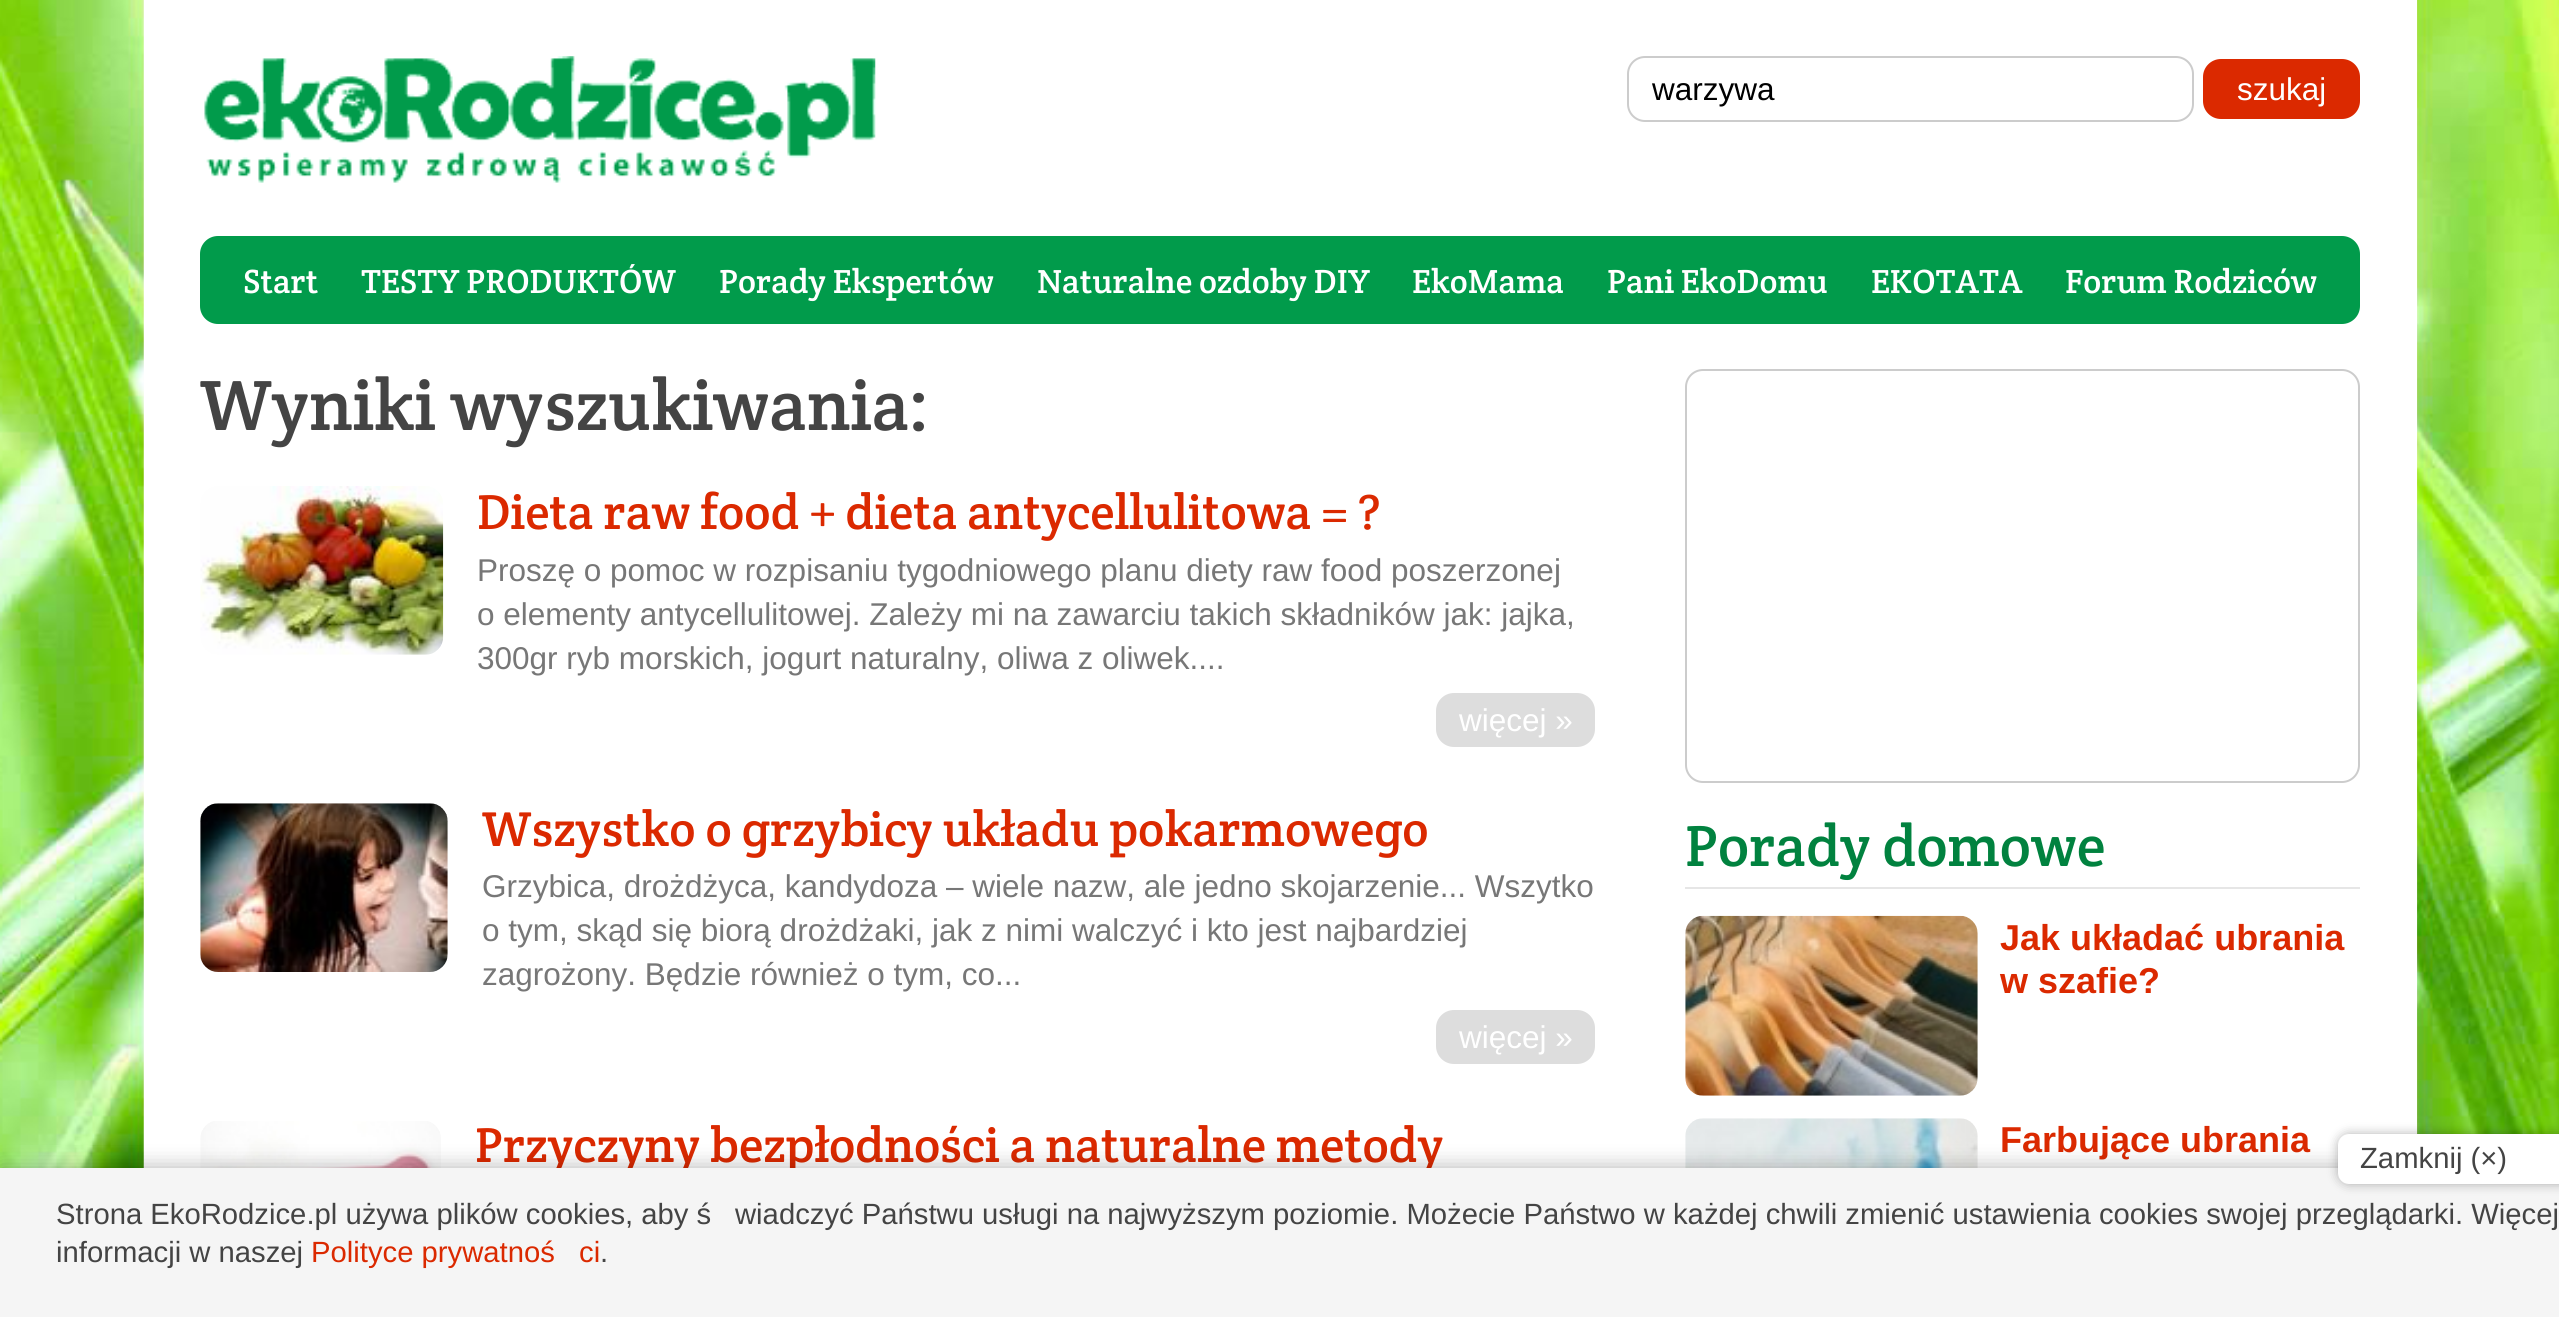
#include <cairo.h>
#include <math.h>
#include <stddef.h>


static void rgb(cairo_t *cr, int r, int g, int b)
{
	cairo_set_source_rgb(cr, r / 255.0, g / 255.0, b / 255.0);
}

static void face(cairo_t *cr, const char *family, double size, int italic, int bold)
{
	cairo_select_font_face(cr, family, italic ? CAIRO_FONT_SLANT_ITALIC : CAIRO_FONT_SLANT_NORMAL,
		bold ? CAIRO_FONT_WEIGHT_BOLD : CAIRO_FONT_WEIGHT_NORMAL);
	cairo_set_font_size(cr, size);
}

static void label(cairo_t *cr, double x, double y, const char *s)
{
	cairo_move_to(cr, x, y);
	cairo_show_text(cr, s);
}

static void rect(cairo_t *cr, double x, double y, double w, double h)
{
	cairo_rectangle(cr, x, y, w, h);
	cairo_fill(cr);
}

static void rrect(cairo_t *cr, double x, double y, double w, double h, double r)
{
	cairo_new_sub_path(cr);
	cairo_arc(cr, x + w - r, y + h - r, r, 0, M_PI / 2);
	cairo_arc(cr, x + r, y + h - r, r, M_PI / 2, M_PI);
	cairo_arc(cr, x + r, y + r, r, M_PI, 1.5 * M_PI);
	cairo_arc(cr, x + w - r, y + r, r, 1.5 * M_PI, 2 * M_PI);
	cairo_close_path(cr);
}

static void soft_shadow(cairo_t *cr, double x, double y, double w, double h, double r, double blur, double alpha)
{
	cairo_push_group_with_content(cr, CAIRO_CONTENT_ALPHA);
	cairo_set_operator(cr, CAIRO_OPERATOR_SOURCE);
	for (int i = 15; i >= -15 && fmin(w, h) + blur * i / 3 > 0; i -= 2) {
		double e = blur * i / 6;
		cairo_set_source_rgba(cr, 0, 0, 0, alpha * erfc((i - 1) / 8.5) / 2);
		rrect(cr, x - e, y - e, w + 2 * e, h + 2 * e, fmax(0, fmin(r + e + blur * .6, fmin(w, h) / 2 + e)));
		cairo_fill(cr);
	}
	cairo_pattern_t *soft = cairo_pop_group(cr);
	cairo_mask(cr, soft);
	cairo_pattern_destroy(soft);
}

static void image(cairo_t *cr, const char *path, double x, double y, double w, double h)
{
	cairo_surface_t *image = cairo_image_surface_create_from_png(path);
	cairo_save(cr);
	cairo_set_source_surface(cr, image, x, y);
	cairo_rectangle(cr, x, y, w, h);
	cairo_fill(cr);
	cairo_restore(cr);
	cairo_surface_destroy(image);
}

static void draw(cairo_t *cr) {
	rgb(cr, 255, 255, 255);
	cairo_paint(cr);
	image(cr, "image0.png", 0, 0, 2559, 1168);
	rgb(cr, 255, 255, 255);
	rect(cr, 144, 0, 2273, 1168);
	image(cr, "image1.png", 204, 56, 672, 127);
	rrect(cr, 1628, 57, 565, 64, 17);
	rgb(cr, 204, 204, 204);
	cairo_stroke(cr);
	face(cr, "Liberation Sans", 31.5, 0, 0);
	rgb(cr, 0, 0, 0);
	label(cr, 1652, 100, "warzywa");
	rgb(cr, 219, 41, 0);
	rrect(cr, 2203, 59, 157, 60, 18);
	cairo_fill(cr);
	rgb(cr, 255, 255, 255);
	label(cr, 2237, 100, "szukaj");
	rgb(cr, 1, 155, 75);
	rrect(cr, 200, 236, 2160, 88, 18);
	cairo_fill(cr);
	face(cr, "Crete Round", 33.75, 0, 0);
	rgb(cr, 255, 255, 255);
	label(cr, 243, 293, "Start");
	label(cr, 361, 293, "TESTY PRODUKTÓW");
	label(cr, 719, 293, "Porady Ekspertów");
	label(cr, 1037, 293, "Naturalne ozdoby DIY");
	label(cr, 1412, 293, "EkoMama");
	label(cr, 1607, 293, "Pani EkoDomu");
	label(cr, 1871, 293, "EKOTATA");
	label(cr, 2065, 293, "Forum Rodziców");
	face(cr, "Crete Round", 72, 0, 0);
	rgb(cr, 68, 68, 68);
	label(cr, 200, 430, "Wyniki wyszukiwania:");
	image(cr, "image2.png", 200, 486, 244, 169);
	face(cr, "Crete Round", 49.5, 0, 0);
	rgb(cr, 219, 41, 0);
	label(cr, 477, 529, "Dieta raw food + dieta antycellulitowa = ?");
	face(cr, "Liberation Sans", 31.5, 0, 0);
	rgb(cr, 119, 119, 119);
	label(cr, 477, 581, "Proszę o pomoc w rozpisaniu tygodniowego planu diety raw food poszerzonej");
	label(cr, 477, 625, "o elementy antycellulitowej. Zależy mi na zawarciu takich składników jak: jajka,");
	label(cr, 477, 669, "300gr ryb morskich, jogurt naturalny, oliwa z oliwek....");
	rgb(cr, 221, 221, 221);
	rrect(cr, 1436, 693, 159, 54, 18);
	cairo_fill(cr);
	rgb(cr, 255, 255, 255);
	label(cr, 1459, 731, "więcej »");
	image(cr, "image3.png", 200, 803, 248, 169);
	face(cr, "Crete Round", 49.5, 0, 0);
	rgb(cr, 219, 41, 0);
	label(cr, 482, 846, "Wszystko o grzybicy układu pokarmowego");
	face(cr, "Liberation Sans", 31.5, 0, 0);
	rgb(cr, 119, 119, 119);
	label(cr, 482, 897, "Grzybica, drożdżyca, kandydoza – wiele nazw, ale jedno skojarzenie... Wszytko");
	label(cr, 482, 941, "o tym, skąd się biorą drożdżaki, jak z nimi walczyć i kto jest najbardziej");
	label(cr, 482, 985, "zagrożony. Będzie również o tym, co...");
	rgb(cr, 221, 221, 221);
	rrect(cr, 1436, 1010, 159, 54, 18);
	cairo_fill(cr);
	rgb(cr, 255, 255, 255);
	label(cr, 1459, 1048, "więcej »");
	image(cr, "image4.png", 200, 1121, 241, 47);
	face(cr, "Crete Round", 49.5, 0, 0);
	rgb(cr, 219, 41, 0);
	label(cr, 475, 1162, "Przyczyny bezpłodności a naturalne metody");
	rrect(cr, 1686, 370, 673, 412, 17);
	rgb(cr, 204, 204, 204);
	cairo_stroke(cr);
	rgb(cr, 230, 230, 230);
	rect(cr, 1685, 887, 675, 2);
	face(cr, "Crete Round", 58.5, 0, 0);
	rgb(cr, 1, 130, 63);
	label(cr, 1685, 866, "Porady domowe");
	image(cr, "image5.png", 1685, 915, 293, 181);
	face(cr, "Liberation Sans", 36, 0, 1);
	rgb(cr, 219, 41, 0);
	label(cr, 2000, 950, "Jak układać ubrania");
	label(cr, 2000, 993, "w szafie?");
	image(cr, "image6.png", 1685, 1118, 293, 50);
	label(cr, 2000, 1152, "Farbujące ubrania");
	rgb(cr, 0, 0, 0);
	soft_shadow(cr, 0, 1168, 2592, 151, 0, 11, 0.3);
	rgb(cr, 245, 245, 245);
	rect(cr, 0, 1168, 2559, 149);
	rgb(cr, 0, 0, 0);
	soft_shadow(cr, 2338, 1134, 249, 50, 11, 5.5, 0.3);
	rgb(cr, 255, 255, 255);
	cairo_new_path(cr);
	cairo_move_to(cr, 2349, 1134);
	cairo_line_to(cr, 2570, 1134);
	cairo_line_to(cr, 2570, 1184);
	cairo_line_to(cr, 2349, 1184);
	cairo_curve_to(cr, 2343, 1184, 2338, 1179, 2338, 1173);
	cairo_line_to(cr, 2338, 1145);
	cairo_curve_to(cr, 2338, 1139, 2343, 1134, 2349, 1134);
	cairo_close_path(cr);
	cairo_fill(cr);
	face(cr, "Liberation Sans", 29.25, 0, 0);
	rgb(cr, 68, 68, 68);
	label(cr, 2360, 1168, "Zamknij (×)");
	label(cr, 56, 1224, "Strona EkoRodzice.pl używa plików cookies, aby ś");
	label(cr, 735, 1224, "wiadczyć Państwu usługi na najwyższym poziomie. Możecie Państwo w każdej chwili zmienić ustawienia cookies swojej przeglądarki. Więcej");
	label(cr, 56, 1262, "informacji w naszej");
	rgb(cr, 219, 41, 0);
	label(cr, 311, 1262, "Polityce prywatnoś");
	label(cr, 579, 1262, "ci");
	rgb(cr, 68, 68, 68);
	label(cr, 600, 1262, ".");
}

int main(void) {
	cairo_surface_t *surface = cairo_image_surface_create(CAIRO_FORMAT_RGB24, 2559, 1317);
	cairo_t *cr = cairo_create(surface);
	cairo_font_options_t *options = cairo_font_options_create();
	cairo_font_options_set_hint_metrics(options, CAIRO_HINT_METRICS_OFF);
	cairo_font_options_set_hint_style(options, CAIRO_HINT_STYLE_NONE);
	cairo_set_font_options(cr, options);
	cairo_set_miter_limit(cr, 4);
	draw(cr);
	cairo_surface_write_to_png(surface, "render.png");
	cairo_font_options_destroy(options);
	cairo_destroy(cr);
	cairo_surface_destroy(surface);
	return 0;
}
